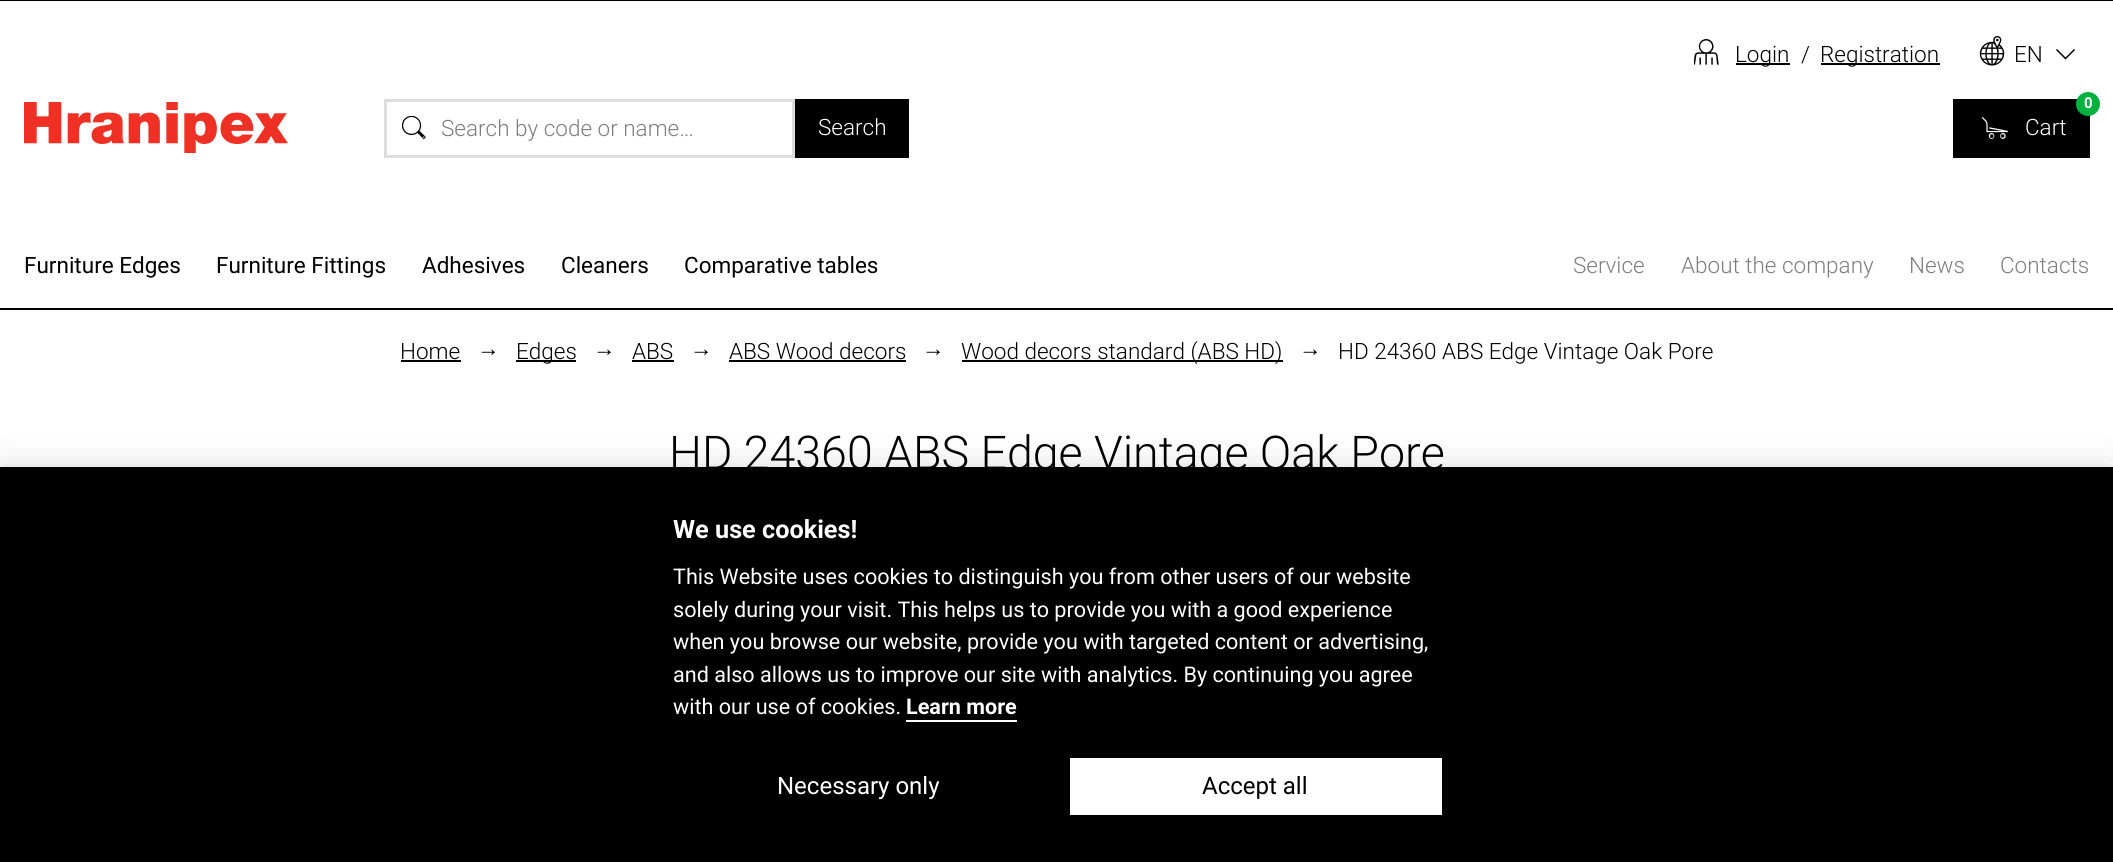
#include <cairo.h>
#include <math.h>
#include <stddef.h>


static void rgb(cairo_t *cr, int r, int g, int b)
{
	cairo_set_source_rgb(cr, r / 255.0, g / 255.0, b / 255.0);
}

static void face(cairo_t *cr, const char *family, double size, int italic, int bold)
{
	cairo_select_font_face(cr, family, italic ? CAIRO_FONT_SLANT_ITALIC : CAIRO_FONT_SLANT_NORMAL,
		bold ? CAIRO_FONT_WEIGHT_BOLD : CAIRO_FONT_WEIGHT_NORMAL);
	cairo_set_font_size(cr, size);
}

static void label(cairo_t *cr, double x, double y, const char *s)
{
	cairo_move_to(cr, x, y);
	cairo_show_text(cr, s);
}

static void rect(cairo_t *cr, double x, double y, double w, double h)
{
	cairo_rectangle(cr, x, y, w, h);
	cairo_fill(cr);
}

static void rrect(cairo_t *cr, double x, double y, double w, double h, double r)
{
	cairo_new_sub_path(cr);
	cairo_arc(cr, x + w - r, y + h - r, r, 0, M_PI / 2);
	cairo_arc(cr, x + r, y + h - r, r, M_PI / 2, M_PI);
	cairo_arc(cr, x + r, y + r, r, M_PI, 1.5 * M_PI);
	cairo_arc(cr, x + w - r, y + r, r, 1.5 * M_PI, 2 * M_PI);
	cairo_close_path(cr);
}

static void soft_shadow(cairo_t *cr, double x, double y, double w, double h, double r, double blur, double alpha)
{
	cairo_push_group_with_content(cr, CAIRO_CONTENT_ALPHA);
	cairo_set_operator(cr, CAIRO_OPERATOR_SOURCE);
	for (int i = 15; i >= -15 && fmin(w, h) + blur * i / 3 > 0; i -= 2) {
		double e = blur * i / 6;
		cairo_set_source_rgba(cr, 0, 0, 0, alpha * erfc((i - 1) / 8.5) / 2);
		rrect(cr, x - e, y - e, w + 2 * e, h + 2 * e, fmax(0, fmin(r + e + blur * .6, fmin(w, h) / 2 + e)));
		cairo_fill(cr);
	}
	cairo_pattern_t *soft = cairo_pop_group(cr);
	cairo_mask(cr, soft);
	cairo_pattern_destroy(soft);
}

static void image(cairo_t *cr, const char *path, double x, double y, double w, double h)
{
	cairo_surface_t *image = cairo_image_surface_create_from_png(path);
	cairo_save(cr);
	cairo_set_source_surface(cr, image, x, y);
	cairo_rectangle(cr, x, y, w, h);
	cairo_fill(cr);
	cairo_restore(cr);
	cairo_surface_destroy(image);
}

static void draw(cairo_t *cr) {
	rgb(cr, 255, 255, 255);
	cairo_paint(cr);
	rgb(cr, 0, 0, 0);
	rect(cr, 0, 0, 2113, 1);
	image(cr, "image0.png", 1694, 39, 25, 26);
	rect(cr, 1736, 63, 54, 2);
	face(cr, "Roboto Light", 22.5, 0, 0);
	label(cr, 1735, 62, "Login");
	label(cr, 1801, 62, "/");
	rect(cr, 1821, 63, 119, 2);
	label(cr, 1820, 62, "Registration");
	image(cr, "image1.png", 1979, 36, 26, 30);
	label(cr, 2014, 62, "EN");
	cairo_new_path(cr);
	cairo_move_to(cr, 2074.5, 49.5);
	cairo_line_to(cr, 2065.5, 58.5);
	cairo_line_to(cr, 2056.5, 49.5);
	cairo_set_line_width(cr, 1.5);
	cairo_stroke(cr);
	image(cr, "image2.png", 24, 102, 264, 51);
	cairo_rectangle(cr, 385.5, 100.5, 408, 56);
	rgb(cr, 221, 221, 221);
	cairo_set_line_width(cr, 3);
	cairo_stroke(cr);
	image(cr, "image3.png", 402, 116, 24, 24);
	rgb(cr, 126, 126, 126);
	label(cr, 441, 136, "Search by code or name…");
	rgb(cr, 0, 0, 0);
	rect(cr, 795, 99, 114, 59);
	rgb(cr, 255, 255, 255);
	label(cr, 818, 135, "Search");
	rgb(cr, 0, 0, 0);
	rect(cr, 1953, 99, 137, 59);
	rgb(cr, 0, 177, 64);
	cairo_new_path(cr);
	cairo_arc(cr, 2088, 104, 12, 0, 2 * M_PI);
	cairo_fill(cr);
	face(cr, "Roboto", 15, 0, 1);
	rgb(cr, 255, 255, 255);
	label(cr, 2084, 108, "0");
	image(cr, "image4.png", 1981, 117, 27, 22);
	face(cr, "Roboto Light", 22.5, 0, 0);
	label(cr, 2025, 135, "Cart");
	face(cr, "Roboto", 22.5, 0, 0);
	rgb(cr, 0, 0, 0);
	label(cr, 24, 273, "Furniture Edges");
	label(cr, 216, 273, "Furniture Fittings");
	label(cr, 422, 273, "Adhesives");
	label(cr, 561, 273, "Cleaners");
	label(cr, 684, 273, "Comparative tables");
	face(cr, "Roboto Light", 22.5, 0, 0);
	rgb(cr, 126, 126, 126);
	label(cr, 1573, 273, "Service");
	label(cr, 1681, 273, "About the company");
	label(cr, 1909, 273, "News");
	label(cr, 2000, 273, "Contacts");
	rgb(cr, 0, 0, 0);
	rect(cr, 0, 308, 2113, 2);
	label(cr, 400, 359, "Home");
	rect(cr, 401, 360, 60, 2);
	face(cr, "Liberation Sans", 22.5, 0, 0);
	label(cr, 477, 356, "→");
	rect(cr, 516, 360, 60, 2);
	face(cr, "Roboto Light", 22.5, 0, 0);
	label(cr, 516, 359, "Edges");
	face(cr, "Liberation Sans", 22.5, 0, 0);
	label(cr, 593, 356, "→");
	face(cr, "Roboto Light", 22.5, 0, 0);
	label(cr, 632, 359, "ABS");
	rect(cr, 632, 360, 42, 2);
	face(cr, "Liberation Sans", 22.5, 0, 0);
	label(cr, 690, 356, "→");
	face(cr, "Roboto Light", 22.5, 0, 0);
	label(cr, 729, 359, "ABS Wood decors");
	rect(cr, 729, 360, 177, 2);
	face(cr, "Liberation Sans", 22.5, 0, 0);
	label(cr, 922, 356, "→");
	rect(cr, 962, 360, 321, 2);
	face(cr, "Roboto Light", 22.5, 0, 0);
	label(cr, 961, 359, "Wood decors standard (ABS HD)");
	face(cr, "Liberation Sans", 22.5, 0, 0);
	label(cr, 1299, 356, "→");
	face(cr, "Roboto Light", 22.5, 0, 0);
	label(cr, 1338, 359, "HD 24360 ABS Edge Vintage Oak Pore");
	face(cr, "Roboto Light", 46.5, 0, 0);
	label(cr, 669, 469, "HD 24360 ABS Edge Vintage Oak Pore");
	rgb(cr, 2, 2, 3);
	soft_shadow(cr, 0, 482, 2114, 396, 0, 22.5, 0.28);
	rgb(cr, 0, 0, 0);
	rect(cr, 0, 467, 2113, 395);
	face(cr, "Roboto", 25.25, 0, 1);
	rgb(cr, 255, 255, 255);
	label(cr, 673, 538, "We use cookies!");
	face(cr, "Roboto", 21.6, 0, 0);
	label(cr, 673, 584, "This Website uses cookies to distinguish you from other users of our website");
	label(cr, 673, 617, "solely during your visit. This helps us to provide you with a good experience");
	label(cr, 673, 649, "when you browse our website, provide you with targeted content or advertising,");
	label(cr, 673, 682, "and also allows us to improve our site with analytics. By continuing you agree");
	label(cr, 673, 714, "with our use of cookies.");
	face(cr, "Roboto", 21.6, 0, 1);
	label(cr, 906, 714, "Learn more");
	rect(cr, 906, 720, 111, 2);
	face(cr, "Roboto", 24, 0, 0);
	label(cr, 777, 794, "Necessary only");
	rect(cr, 1070, 758, 372, 57);
	rgb(cr, 0, 0, 0);
	label(cr, 1202, 794, "Accept all");
}

int main(void) {
	cairo_surface_t *surface = cairo_image_surface_create(CAIRO_FORMAT_RGB24, 2113, 862);
	cairo_t *cr = cairo_create(surface);
	cairo_font_options_t *options = cairo_font_options_create();
	cairo_font_options_set_hint_metrics(options, CAIRO_HINT_METRICS_OFF);
	cairo_font_options_set_hint_style(options, CAIRO_HINT_STYLE_NONE);
	cairo_set_font_options(cr, options);
	cairo_set_miter_limit(cr, 4);
	draw(cr);
	cairo_surface_write_to_png(surface, "render.png");
	cairo_font_options_destroy(options);
	cairo_destroy(cr);
	cairo_surface_destroy(surface);
	return 0;
}
